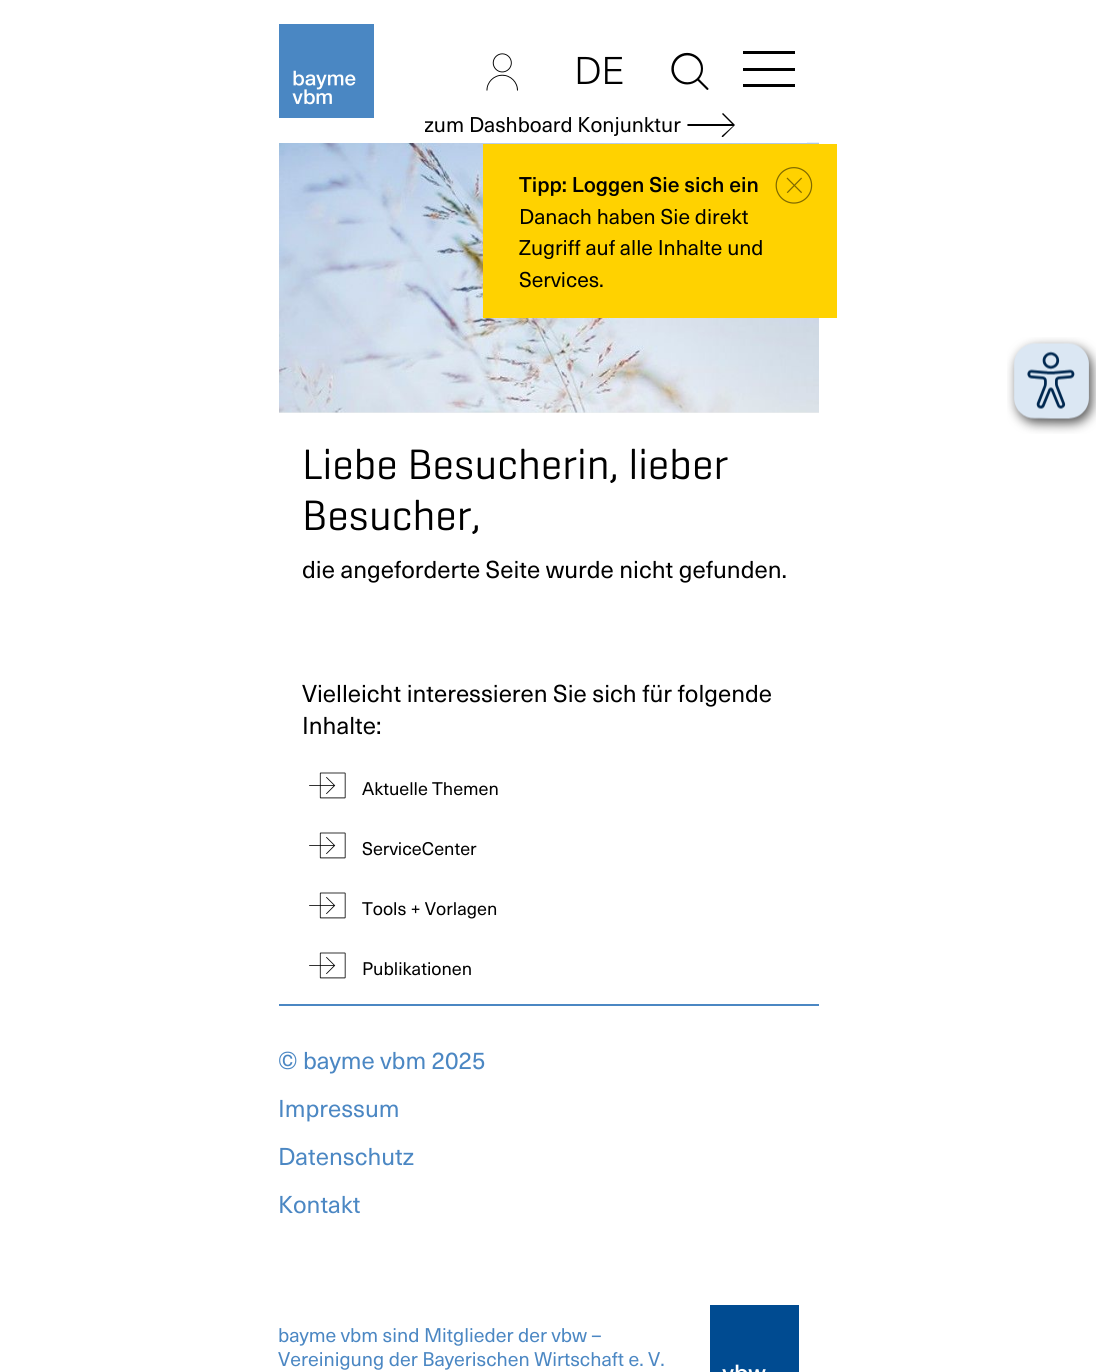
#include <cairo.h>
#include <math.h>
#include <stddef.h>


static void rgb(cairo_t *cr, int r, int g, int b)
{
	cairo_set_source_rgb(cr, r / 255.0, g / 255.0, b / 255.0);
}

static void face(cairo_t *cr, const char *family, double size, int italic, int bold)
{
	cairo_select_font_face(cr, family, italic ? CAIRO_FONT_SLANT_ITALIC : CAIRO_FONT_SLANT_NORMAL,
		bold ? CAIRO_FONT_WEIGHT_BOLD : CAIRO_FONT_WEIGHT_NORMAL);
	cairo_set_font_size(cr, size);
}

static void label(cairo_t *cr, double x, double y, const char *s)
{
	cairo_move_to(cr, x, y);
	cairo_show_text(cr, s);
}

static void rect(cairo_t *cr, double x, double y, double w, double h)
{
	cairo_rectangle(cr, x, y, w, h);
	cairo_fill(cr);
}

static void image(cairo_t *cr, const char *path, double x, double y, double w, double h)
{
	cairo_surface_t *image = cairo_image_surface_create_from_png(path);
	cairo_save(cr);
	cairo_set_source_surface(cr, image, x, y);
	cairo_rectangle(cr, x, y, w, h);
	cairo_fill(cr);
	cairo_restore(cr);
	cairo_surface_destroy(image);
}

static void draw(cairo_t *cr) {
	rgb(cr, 255, 255, 255);
	cairo_paint(cr);
	rgb(cr, 236, 238, 239);
	rect(cr, 279, 412, 540, 1);
	image(cr, "image5.png", 279, 142, 540, 271);
	rgb(cr, 255, 255, 255);
	rect(cr, 279, 142, 528, 1);
	image(cr, "image0.png", 279, 24, 95, 94);
	image(cr, "image1.png", 486, 53, 32, 38);
	face(cr, "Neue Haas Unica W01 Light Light", 38, 0, 0);
	rgb(cr, 0, 0, 0);
	label(cr, 574, 84, "DE");
	image(cr, "image2.png", 671, 52, 38, 38);
	rect(cr, 743, 68, 52, 3);
	rect(cr, 743, 51, 52, 3);
	rect(cr, 743, 84, 52, 3);
	cairo_save(cr);
	cairo_rectangle(cr, 425, 105, 310, 38);
	cairo_clip(cr);
	face(cr, "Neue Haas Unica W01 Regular", 21, 0, 0);
	label(cr, 424, 132, "zum Dashboard Konjunktur");
	cairo_restore(cr);
	cairo_new_path(cr);
	cairo_move_to(cr, 733, 126);
	cairo_line_to(cr, 688, 126);
	cairo_curve_to(cr, 687, 126, 687, 124, 688, 124);
	cairo_line_to(cr, 732, 124);
	cairo_line_to(cr, 722, 114);
	cairo_line_to(cr, 723, 113);
	cairo_line_to(cr, 735, 125);
	cairo_line_to(cr, 723, 137);
	cairo_line_to(cr, 722, 137);
	cairo_curve_to(cr, 721, 136, 723, 135, 724, 134);
	cairo_close_path(cr);
	cairo_fill(cr);
	rgb(cr, 255, 210, 0);
	rect(cr, 483, 144, 354, 174);
	face(cr, "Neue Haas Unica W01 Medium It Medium", 21, 0, 0);
	rgb(cr, 0, 0, 0);
	label(cr, 519, 192, "Tipp: Loggen Sie sich ein");
	face(cr, "Neue Haas Unica W01 Regular", 21, 0, 0);
	label(cr, 519, 224, "Danach haben Sie direkt");
	label(cr, 519, 255, "Zugriff auf alle Inhalte und");
	label(cr, 519, 287, "Services.");
	image(cr, "image3.png", 775, 167, 38, 37);
	image(cr, "image4.png", 1007, 337, 89, 97);
	face(cr, "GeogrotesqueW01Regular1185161", 43.25, 0, 0);
	label(cr, 302, 479, "Liebe Besucherin, lieber");
	label(cr, 302, 530, "Besucher,");
	face(cr, "Neue Haas Unica W01 Regular", 24, 0, 0);
	label(cr, 302, 578, "die angeforderte Seite wurde nicht gefunden.");
	label(cr, 302, 702, "Vielleicht interessieren Sie sich für folgende");
	label(cr, 302, 734, "Inhalte:");
	image(cr, "image6.png", 309, 772, 37, 27);
	face(cr, "Neue Haas Unica W01 Regular", 18, 0, 0);
	label(cr, 362, 795, "Aktuelle Themen");
	image(cr, "image6.png", 309, 832, 37, 27);
	label(cr, 362, 855, "ServiceCenter");
	image(cr, "image6.png", 309, 892, 37, 27);
	label(cr, 362, 915, "Tools + Vorlagen");
	image(cr, "image6.png", 309, 952, 37, 27);
	label(cr, 362, 975, "Publikationen");
	rgb(cr, 75, 135, 195);
	rect(cr, 279, 1004, 540, 2);
	face(cr, "Neue Haas Unica W01 Regular", 24, 0, 0);
	label(cr, 278, 1069, "© bayme vbm 2025");
	label(cr, 278, 1117, "Impressum");
	label(cr, 278, 1165, "Datenschutz");
	label(cr, 278, 1213, "Kontakt");
	face(cr, "Neue Haas Unica W01 Regular", 19.5, 0, 0);
	label(cr, 278, 1342, "bayme vbm sind Mitglieder der vbw –");
	label(cr, 278, 1366, "Vereinigung der Bayerischen Wirtschaft e. V.");
	image(cr, "image7.png", 710, 1305, 89, 67);
}

int main(void) {
	cairo_surface_t *surface = cairo_image_surface_create(CAIRO_FORMAT_RGB24, 1096, 1372);
	cairo_t *cr = cairo_create(surface);
	cairo_font_options_t *options = cairo_font_options_create();
	cairo_font_options_set_hint_metrics(options, CAIRO_HINT_METRICS_OFF);
	cairo_font_options_set_hint_style(options, CAIRO_HINT_STYLE_NONE);
	cairo_set_font_options(cr, options);
	cairo_set_miter_limit(cr, 4);
	draw(cr);
	cairo_surface_write_to_png(surface, "render.png");
	cairo_font_options_destroy(options);
	cairo_destroy(cr);
	cairo_surface_destroy(surface);
	return 0;
}
